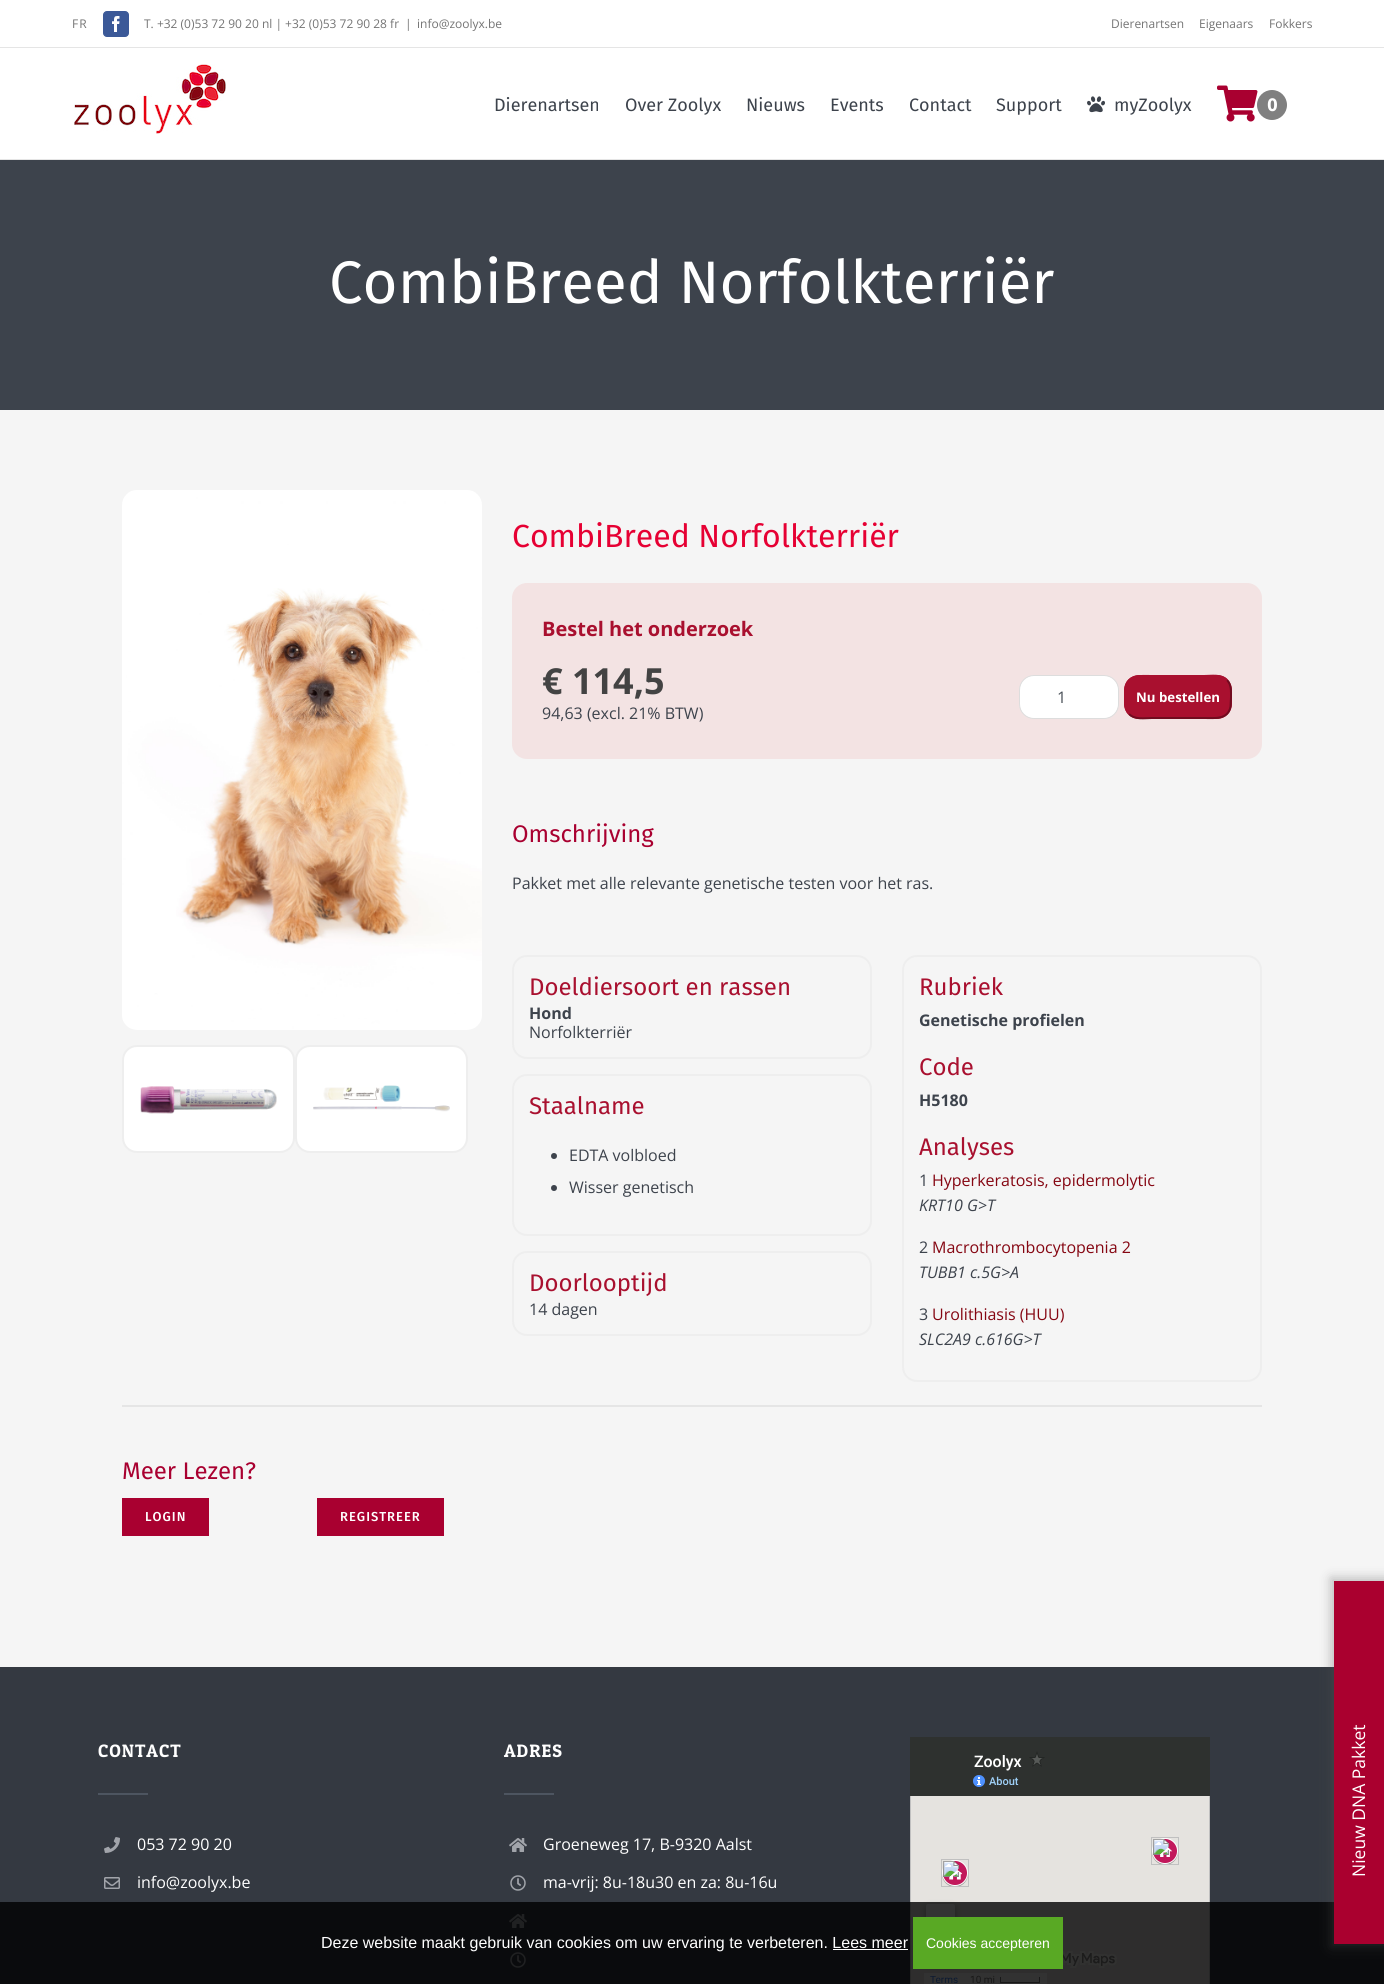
#include <cairo.h>
#include <math.h>
#include <stddef.h>


static void rgb(cairo_t *cr, int r, int g, int b)
{
	cairo_set_source_rgb(cr, r / 255.0, g / 255.0, b / 255.0);
}

static void face(cairo_t *cr, const char *family, double size, int italic, int bold)
{
	cairo_select_font_face(cr, family, italic ? CAIRO_FONT_SLANT_ITALIC : CAIRO_FONT_SLANT_NORMAL,
		bold ? CAIRO_FONT_WEIGHT_BOLD : CAIRO_FONT_WEIGHT_NORMAL);
	cairo_set_font_size(cr, size);
}

static void label(cairo_t *cr, double x, double y, const char *s)
{
	cairo_move_to(cr, x, y);
	cairo_show_text(cr, s);
}

static void tracked(cairo_t *cr, double x, double y, const char *s, double letter, double word)
{
	cairo_move_to(cr, x, y);
	while (*s) {
		char ch[5] = {0};
		int n = 0;
		do ch[n++] = *s++; while ((*s & 0xC0) == 0x80);
		cairo_show_text(cr, ch);
		cairo_rel_move_to(cr, letter + word * (*ch == ' '), 0);
	}
}

static void rect(cairo_t *cr, double x, double y, double w, double h)
{
	cairo_rectangle(cr, x, y, w, h);
	cairo_fill(cr);
}

static void rrect(cairo_t *cr, double x, double y, double w, double h, double r)
{
	cairo_new_sub_path(cr);
	cairo_arc(cr, x + w - r, y + h - r, r, 0, M_PI / 2);
	cairo_arc(cr, x + r, y + h - r, r, M_PI / 2, M_PI);
	cairo_arc(cr, x + r, y + r, r, M_PI, 1.5 * M_PI);
	cairo_arc(cr, x + w - r, y + r, r, 1.5 * M_PI, 2 * M_PI);
	cairo_close_path(cr);
}

static void soft_shadow(cairo_t *cr, double x, double y, double w, double h, double r, double blur, double alpha)
{
	cairo_push_group_with_content(cr, CAIRO_CONTENT_ALPHA);
	cairo_set_operator(cr, CAIRO_OPERATOR_SOURCE);
	for (int i = 15; i >= -15 && fmin(w, h) + blur * i / 3 > 0; i -= 2) {
		double e = blur * i / 6;
		cairo_set_source_rgba(cr, 0, 0, 0, alpha * erfc((i - 1) / 8.5) / 2);
		rrect(cr, x - e, y - e, w + 2 * e, h + 2 * e, fmax(0, fmin(r + e + blur * .6, fmin(w, h) / 2 + e)));
		cairo_fill(cr);
	}
	cairo_pattern_t *soft = cairo_pop_group(cr);
	cairo_mask(cr, soft);
	cairo_pattern_destroy(soft);
}

static void image(cairo_t *cr, const char *path, double x, double y, double w, double h)
{
	cairo_surface_t *image = cairo_image_surface_create_from_png(path);
	cairo_save(cr);
	cairo_set_source_surface(cr, image, x, y);
	cairo_rectangle(cr, x, y, w, h);
	cairo_fill(cr);
	cairo_restore(cr);
	cairo_surface_destroy(image);
}

static void draw(cairo_t *cr) {
	rgb(cr, 245, 245, 245);
	cairo_paint(cr);
	rgb(cr, 255, 255, 255);
	rect(cr, 0, 0, 1384, 47);
	rgb(cr, 229, 229, 229);
	rect(cr, 0, 47, 1384, 1);
	face(cr, "Open Sans", 12, 0, 0);
	rgb(cr, 116, 116, 116);
	tracked(cr, 72, 28, "FR", 1, 0);
	rgb(cr, 59, 89, 152);
	rrect(cr, 103.5, 11.5, 25, 25, 3.5);
	cairo_fill_preserve(cr);
	cairo_set_line_width(cr, 1);
	cairo_stroke(cr);
	image(cr, "image0.png", 112, 16, 8, 16);
	rgb(cr, 116, 116, 116);
	label(cr, 144, 28, "T. +32 (0)53 72 90 20 nl | +32 (0)53 72 90 28 fr");
	label(cr, 405, 28, "|");
	label(cr, 417, 28, "info@zoolyx.be");
	label(cr, 1111, 28, "Dierenartsen");
	label(cr, 1199, 28, "Eigenaars");
	label(cr, 1269, 28, "Fokkers");
	rgb(cr, 255, 255, 255);
	rect(cr, 0, 48, 1384, 111);
	rgb(cr, 229, 229, 229);
	rect(cr, 0, 159, 1384, 1);
	image(cr, "image1.png", 72, 64, 154, 70);
	face(cr, "Fira Sans", 18, 0, 0);
	rgb(cr, 61, 67, 76);
	label(cr, 494, 111, "Dierenartsen");
	label(cr, 625, 111, "Over Zoolyx");
	label(cr, 746, 111, "Nieuws");
	label(cr, 830, 111, "Events");
	label(cr, 909, 111, "Contact");
	label(cr, 996, 111, "Support");
	image(cr, "image2.png", 1087, 96, 18, 17);
	label(cr, 1114, 111, "myZoolyx");
	image(cr, "image3.png", 1217, 85, 41, 37);
	rgb(cr, 128, 128, 128);
	cairo_arc(cr, 1272, 105, 15, 0, 2 * M_PI);
	cairo_fill(cr);
	face(cr, "Fira Sans", 18, 0, 1);
	rgb(cr, 255, 255, 255);
	label(cr, 1267, 111, "0");
	rgb(cr, 61, 67, 76);
	rect(cr, 0, 160, 1384, 250);
	face(cr, "Fira Sans", 60, 0, 0);
	rgb(cr, 255, 255, 255);
	label(cr, 329, 303, "CombiBreed Norfolkterriër");
	image(cr, "image4.png", 122, 490, 360, 540);
	rrect(cr, 123, 1046, 171, 106, 14);
	cairo_fill_preserve(cr);
	rgb(cr, 238, 238, 238);
	cairo_set_line_width(cr, 2);
	cairo_stroke(cr);
	image(cr, "image5.png", 140, 1086, 137, 28);
	rgb(cr, 255, 255, 255);
	rrect(cr, 296, 1046, 171, 106, 14);
	cairo_fill_preserve(cr);
	rgb(cr, 238, 238, 238);
	cairo_stroke(cr);
	image(cr, "image6.png", 313, 1085, 137, 27);
	face(cr, "Fira Sans", 32, 0, 0);
	rgb(cr, 230, 0, 51);
	label(cr, 512, 547, "CombiBreed Norfolkterriër");
	rgb(cr, 243, 227, 227);
	rrect(cr, 512, 583, 750, 176, 15);
	cairo_fill(cr);
	face(cr, "Open Sans", 20, 0, 1);
	rgb(cr, 169, 16, 47);
	label(cr, 542, 636, "Bestel het onderzoek");
	face(cr, "Open Sans", 36, 0, 1);
	rgb(cr, 67, 67, 67);
	label(cr, 542, 694, "€ 114,5");
	face(cr, "Open Sans", 16, 0, 0);
	rgb(cr, 61, 67, 76);
	label(cr, 542, 719, "94,63 (excl. 21% BTW)");
	rgb(cr, 255, 255, 255);
	rrect(cr, 1019.5, 675.5, 99, 43, 14.5);
	cairo_fill_preserve(cr);
	rgb(cr, 221, 221, 221);
	cairo_set_line_width(cr, 1);
	cairo_stroke(cr);
	rgb(cr, 73, 80, 87);
	label(cr, 1057, 703, "1");
	rgb(cr, 169, 16, 47);
	rrect(cr, 1124, 675, 108, 44, 15);
	cairo_fill(cr);
	cairo_new_path(cr);
	cairo_move_to(cr, 1227, 680);
	cairo_curve_to(cr, 1231.5, 685, 1231, 691, 1231, 697);
	cairo_line_to(cr, 1230.5, 706.5);
	cairo_curve_to(cr, 1228, 720, 1214.5, 718, 1204, 718);
	cairo_line_to(cr, 1152, 718);
	cairo_curve_to(cr, 1144.5, 718, 1135, 720, 1129, 714);
	rgb(cr, 113, 11, 31);
	cairo_set_line_width(cr, 2);
	cairo_stroke(cr);
	cairo_new_path(cr);
	cairo_move_to(cr, 1129, 714);
	cairo_curve_to(cr, 1124.5, 709, 1125, 703, 1125, 697);
	cairo_line_to(cr, 1125.5, 687.5);
	cairo_curve_to(cr, 1128, 674, 1141.5, 676, 1152, 676);
	cairo_line_to(cr, 1204, 676);
	cairo_curve_to(cr, 1211.5, 676, 1221, 674, 1227, 680);
	rgb(cr, 169, 16, 47);
	cairo_stroke(cr);
	face(cr, "Open Sans", 13.25, 0, 1);
	rgb(cr, 255, 255, 255);
	label(cr, 1136, 702, "Nu bestellen");
	face(cr, "Fira Sans", 24, 0, 0);
	rgb(cr, 169, 0, 48);
	label(cr, 512, 842, "Omschrijving");
	face(cr, "Open Sans", 16, 0, 0);
	rgb(cr, 61, 67, 76);
	label(cr, 512, 889, "Pakket met alle relevante genetische testen voor het ras.");
	rrect(cr, 513, 956, 358, 102, 14);
	rgb(cr, 238, 238, 238);
	cairo_stroke(cr);
	face(cr, "Fira Sans", 24, 0, 0);
	rgb(cr, 169, 16, 47);
	label(cr, 529, 995, "Doeldiersoort en rassen");
	face(cr, "Open Sans", 16, 0, 1);
	rgb(cr, 61, 67, 76);
	label(cr, 529, 1019, "Hond");
	face(cr, "Open Sans", 16, 0, 0);
	label(cr, 529, 1038, "Norfolkterriër");
	rrect(cr, 513, 1075, 358, 160, 14);
	rgb(cr, 238, 238, 238);
	cairo_stroke(cr);
	face(cr, "Fira Sans", 24, 0, 0);
	rgb(cr, 169, 16, 47);
	label(cr, 529, 1114, "Staalname");
	rgb(cr, 61, 67, 76);
	cairo_new_path(cr);
	cairo_arc(cr, 554, 1156, 3, 0, 2 * M_PI);
	cairo_fill(cr);
	face(cr, "Open Sans", 16, 0, 0);
	label(cr, 569, 1161, "EDTA volbloed");
	cairo_new_path(cr);
	cairo_arc(cr, 554, 1188, 3, 0, 2 * M_PI);
	cairo_fill(cr);
	label(cr, 569, 1193, "Wisser genetisch");
	rrect(cr, 513, 1252, 358, 83, 14);
	rgb(cr, 238, 238, 238);
	cairo_stroke(cr);
	face(cr, "Fira Sans", 24, 0, 0);
	rgb(cr, 169, 16, 47);
	label(cr, 529, 1291, "Doorlooptijd");
	face(cr, "Open Sans", 16, 0, 0);
	rgb(cr, 61, 67, 76);
	label(cr, 529, 1315, "14 dagen");
	rrect(cr, 903, 956, 358, 425, 14);
	rgb(cr, 238, 238, 238);
	cairo_stroke(cr);
	face(cr, "Fira Sans", 24, 0, 0);
	rgb(cr, 169, 16, 47);
	label(cr, 919, 995, "Rubriek");
	face(cr, "Open Sans", 16, 0, 1);
	rgb(cr, 61, 67, 76);
	label(cr, 919, 1026, "Genetische profielen");
	face(cr, "Fira Sans", 24, 0, 0);
	rgb(cr, 169, 16, 47);
	label(cr, 919, 1075, "Code");
	face(cr, "Open Sans", 16, 0, 1);
	rgb(cr, 61, 67, 76);
	label(cr, 919, 1106, "H5180");
	face(cr, "Fira Sans", 24, 0, 0);
	rgb(cr, 169, 16, 47);
	label(cr, 919, 1155, "Analyses");
	face(cr, "Open Sans", 16, 0, 0);
	rgb(cr, 61, 67, 76);
	label(cr, 919, 1186, "1");
	rgb(cr, 133, 6, 18);
	label(cr, 932, 1186, "Hyperkeratosis, epidermolytic");
	face(cr, "Open Sans", 16, 1, 0);
	rgb(cr, 61, 67, 76);
	label(cr, 919, 1211, "KRT10 G>T");
	face(cr, "Open Sans", 16, 0, 0);
	label(cr, 919, 1253, "2");
	rgb(cr, 133, 6, 18);
	label(cr, 932, 1253, "Macrothrombocytopenia 2");
	face(cr, "Open Sans", 16, 1, 0);
	rgb(cr, 61, 67, 76);
	label(cr, 919, 1278, "TUBB1 c.5G>A");
	face(cr, "Open Sans", 16, 0, 0);
	label(cr, 919, 1320, "3");
	rgb(cr, 133, 6, 18);
	label(cr, 932, 1320, "Urolithiasis (HUU)");
	face(cr, "Open Sans", 16, 1, 0);
	rgb(cr, 61, 67, 76);
	label(cr, 919, 1345, "SLC2A9 c.616G>T");
	rgb(cr, 229, 229, 229);
	rect(cr, 122, 1405, 1140, 2);
	face(cr, "Fira Sans", 24, 0, 0);
	rgb(cr, 169, 0, 48);
	label(cr, 122, 1479, "Meer Lezen?");
	rect(cr, 122, 1498, 87, 38);
	face(cr, "Fira Sans Medium", 13, 0, 0);
	rgb(cr, 255, 255, 255);
	tracked(cr, 145, 1521, "LOGIN", 1, 0);
	rgb(cr, 169, 0, 48);
	rect(cr, 317, 1498, 127, 38);
	rgb(cr, 255, 255, 255);
	tracked(cr, 340, 1521, "REGISTREER", 1, 0);
	rgb(cr, 52, 57, 65);
	rect(cr, 0, 1667, 1384, 317);
	face(cr, "Patua One", 18, 0, 0);
	rgb(cr, 255, 255, 255);
	tracked(cr, 98, 1757, "CONTACT", 1, 0);
	rgb(cr, 77, 85, 96);
	rect(cr, 98, 1793, 50, 2);
	image(cr, "image7.png", 104, 1837, 16, 16);
	face(cr, "Open Sans", 16, 0, 0);
	rgb(cr, 255, 255, 255);
	label(cr, 137, 1850, "053 72 90 20");
	image(cr, "image8.png", 104, 1877, 16, 12);
	label(cr, 137, 1888, "info@zoolyx.be");
	face(cr, "Patua One", 18, 0, 0);
	tracked(cr, 504, 1757, "ADRES", 1, 0);
	rgb(cr, 77, 85, 96);
	rect(cr, 504, 1793, 50, 2);
	image(cr, "image9.png", 509, 1838, 18, 14);
	face(cr, "Open Sans", 16, 0, 0);
	rgb(cr, 255, 255, 255);
	label(cr, 543, 1850, "Groeneweg 17, B-9320 Aalst");
	image(cr, "image10.png", 510, 1875, 16, 16);
	label(cr, 543, 1888, "ma-vrij: 8u-18u30 en za: 8u-16u");
	image(cr, "image9.png", 509, 1914, 18, 14);
	image(cr, "image10.png", 510, 1952, 16, 16);
	image(cr, "image11.png", 910, 1737, 300, 247);
	cairo_set_source_rgba(cr, 0, 0, 0, 0.8);
	rect(cr, 0, 1902, 1384, 82);
	rgb(cr, 80, 80, 80);
	soft_shadow(cr, 1331, 1578, 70, 369, 0, 5.5, 0.35);
	rgb(cr, 170, 0, 47);
	rect(cr, 1334, 1581, 50, 363);
	face(cr, "Open Sans", 17.5, 0, 0);
	rgb(cr, 255, 255, 255);
	cairo_save(cr);
	cairo_translate(cr, 1365, 1877);
	cairo_rotate(cr, -90 * M_PI / 180);
	label(cr, 0, 0, "Nieuw DNA Pakket");
	cairo_restore(cr);
	face(cr, "Liberation Sans", 16, 0, 0);
	label(cr, 321, 1948, "Deze website maakt gebruik van cookies om uw ervaring te verbeteren. Lees meer");
	rgb(cr, 89, 169, 36);
	rect(cr, 913, 1917, 150, 52);
	face(cr, "Liberation Sans", 14, 0, 0);
	rgb(cr, 255, 255, 255);
	label(cr, 926, 1948, "Cookies accepteren");
	rect(cr, 833, 1949, 75, 1);
}

int main(void) {
	cairo_surface_t *surface = cairo_image_surface_create(CAIRO_FORMAT_RGB24, 1384, 1984);
	cairo_t *cr = cairo_create(surface);
	cairo_font_options_t *options = cairo_font_options_create();
	cairo_font_options_set_hint_metrics(options, CAIRO_HINT_METRICS_OFF);
	cairo_font_options_set_hint_style(options, CAIRO_HINT_STYLE_NONE);
	cairo_set_font_options(cr, options);
	cairo_set_miter_limit(cr, 4);
	draw(cr);
	cairo_surface_write_to_png(surface, "render.png");
	cairo_font_options_destroy(options);
	cairo_destroy(cr);
	cairo_surface_destroy(surface);
	return 0;
}
